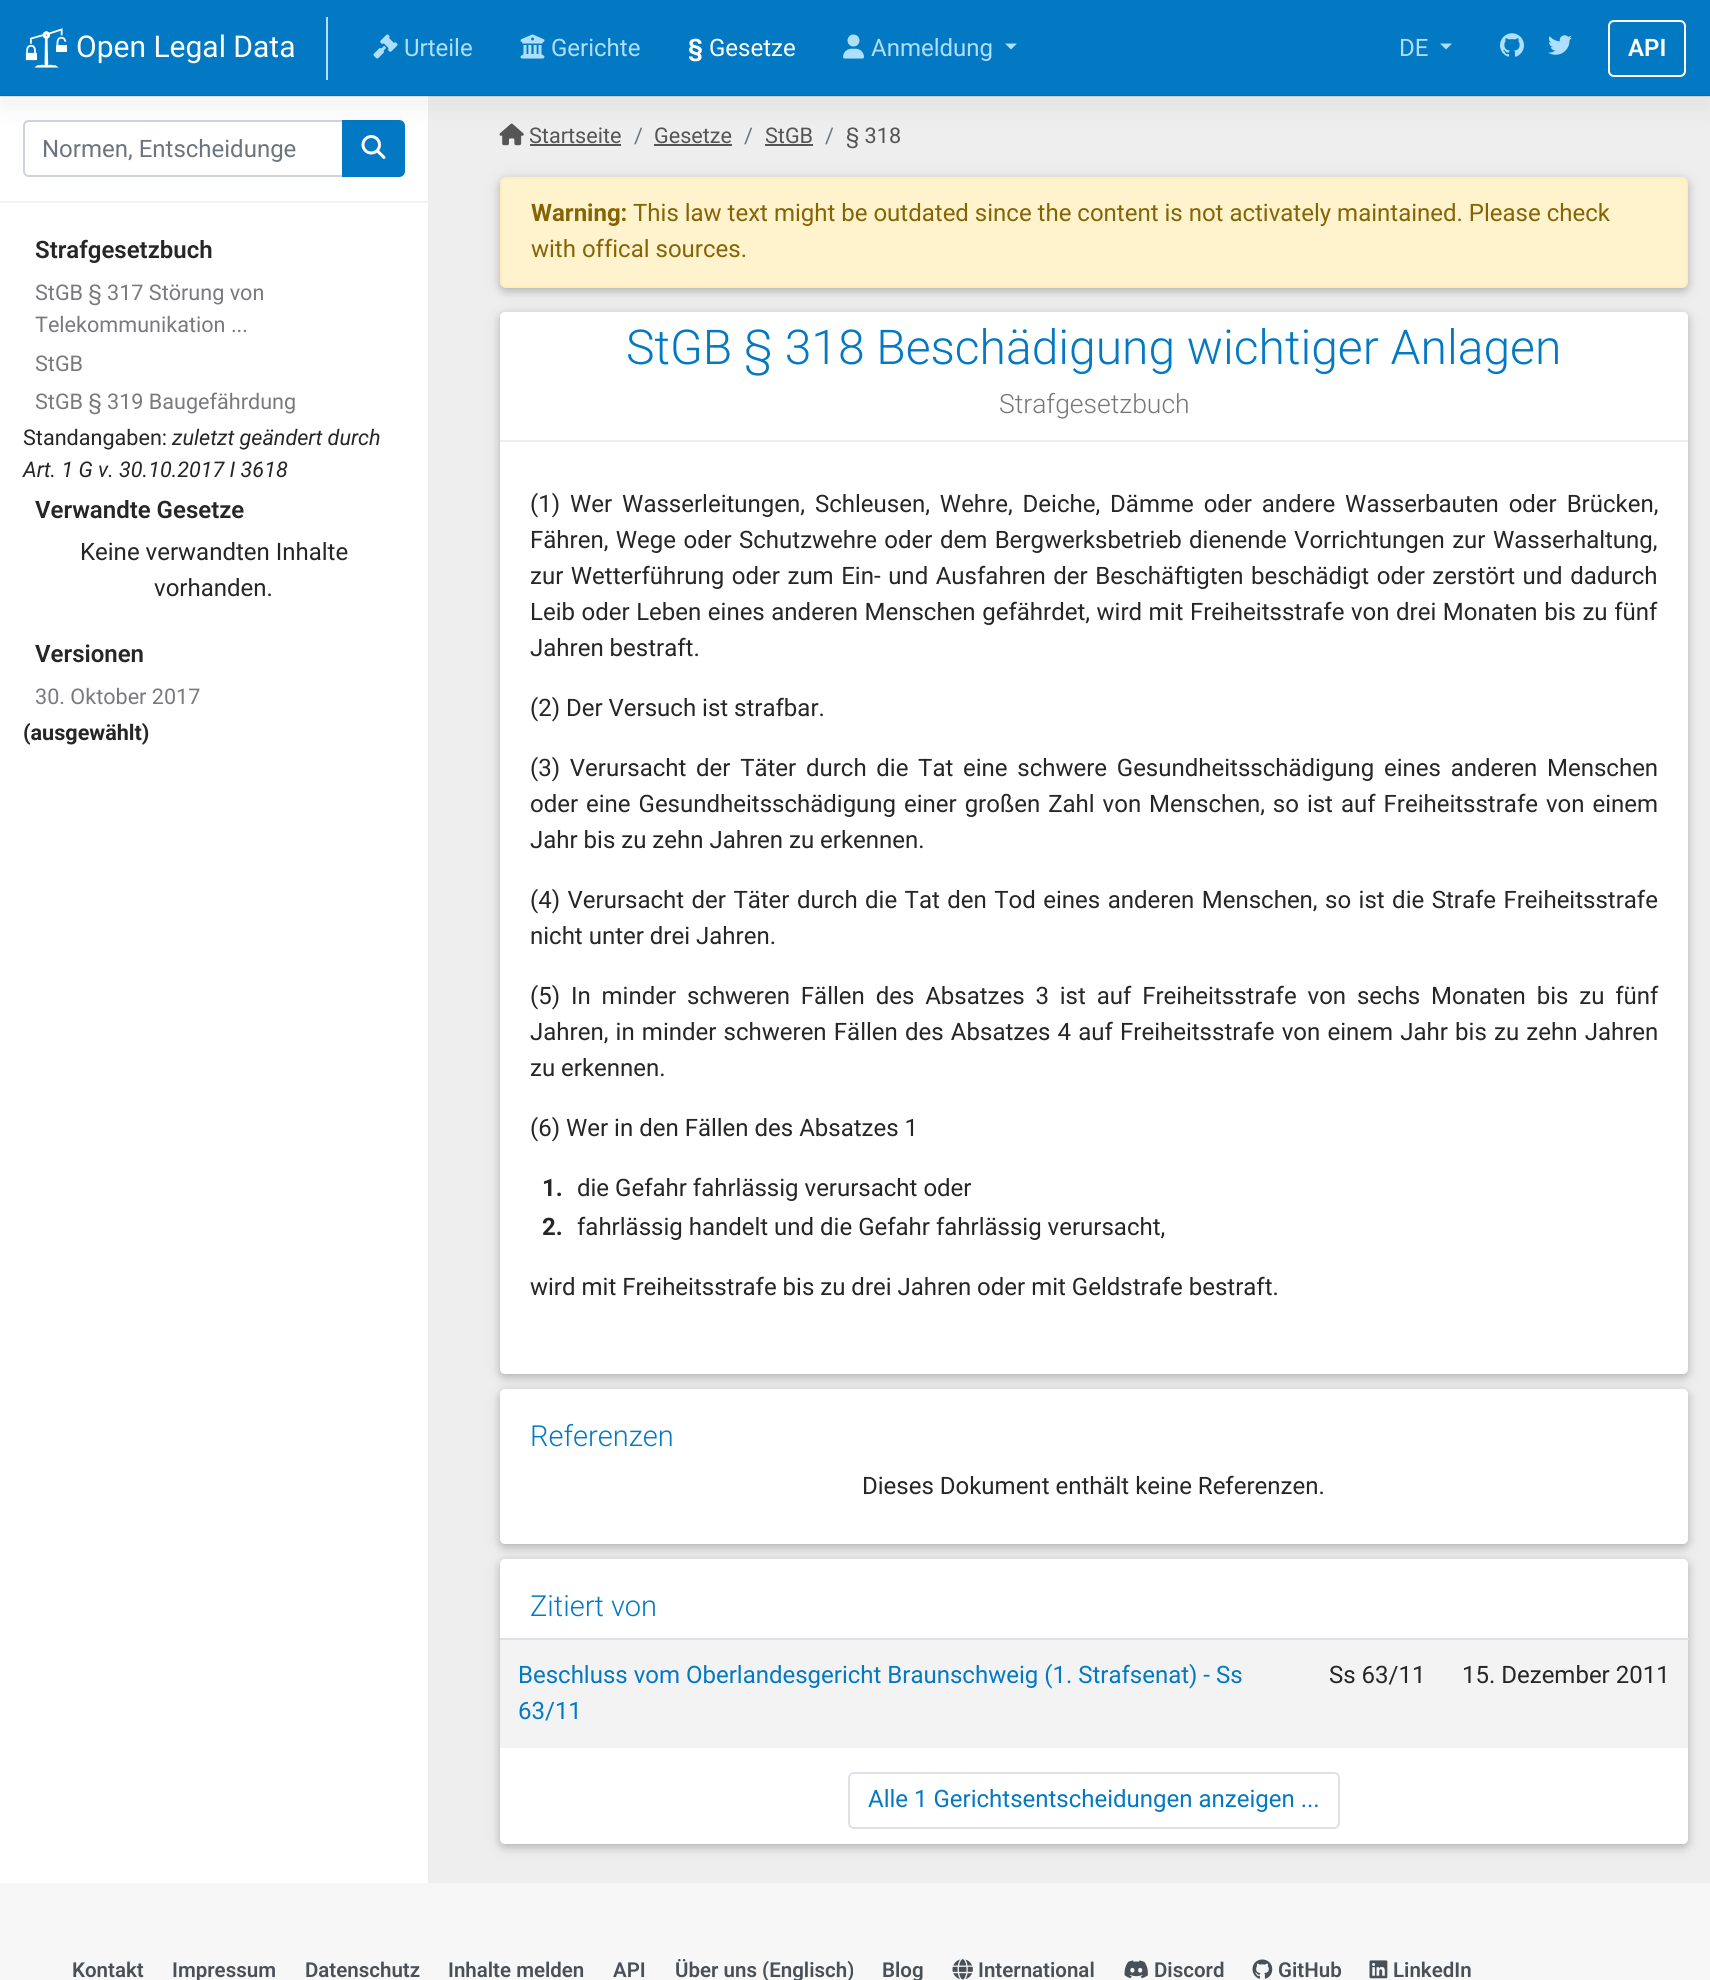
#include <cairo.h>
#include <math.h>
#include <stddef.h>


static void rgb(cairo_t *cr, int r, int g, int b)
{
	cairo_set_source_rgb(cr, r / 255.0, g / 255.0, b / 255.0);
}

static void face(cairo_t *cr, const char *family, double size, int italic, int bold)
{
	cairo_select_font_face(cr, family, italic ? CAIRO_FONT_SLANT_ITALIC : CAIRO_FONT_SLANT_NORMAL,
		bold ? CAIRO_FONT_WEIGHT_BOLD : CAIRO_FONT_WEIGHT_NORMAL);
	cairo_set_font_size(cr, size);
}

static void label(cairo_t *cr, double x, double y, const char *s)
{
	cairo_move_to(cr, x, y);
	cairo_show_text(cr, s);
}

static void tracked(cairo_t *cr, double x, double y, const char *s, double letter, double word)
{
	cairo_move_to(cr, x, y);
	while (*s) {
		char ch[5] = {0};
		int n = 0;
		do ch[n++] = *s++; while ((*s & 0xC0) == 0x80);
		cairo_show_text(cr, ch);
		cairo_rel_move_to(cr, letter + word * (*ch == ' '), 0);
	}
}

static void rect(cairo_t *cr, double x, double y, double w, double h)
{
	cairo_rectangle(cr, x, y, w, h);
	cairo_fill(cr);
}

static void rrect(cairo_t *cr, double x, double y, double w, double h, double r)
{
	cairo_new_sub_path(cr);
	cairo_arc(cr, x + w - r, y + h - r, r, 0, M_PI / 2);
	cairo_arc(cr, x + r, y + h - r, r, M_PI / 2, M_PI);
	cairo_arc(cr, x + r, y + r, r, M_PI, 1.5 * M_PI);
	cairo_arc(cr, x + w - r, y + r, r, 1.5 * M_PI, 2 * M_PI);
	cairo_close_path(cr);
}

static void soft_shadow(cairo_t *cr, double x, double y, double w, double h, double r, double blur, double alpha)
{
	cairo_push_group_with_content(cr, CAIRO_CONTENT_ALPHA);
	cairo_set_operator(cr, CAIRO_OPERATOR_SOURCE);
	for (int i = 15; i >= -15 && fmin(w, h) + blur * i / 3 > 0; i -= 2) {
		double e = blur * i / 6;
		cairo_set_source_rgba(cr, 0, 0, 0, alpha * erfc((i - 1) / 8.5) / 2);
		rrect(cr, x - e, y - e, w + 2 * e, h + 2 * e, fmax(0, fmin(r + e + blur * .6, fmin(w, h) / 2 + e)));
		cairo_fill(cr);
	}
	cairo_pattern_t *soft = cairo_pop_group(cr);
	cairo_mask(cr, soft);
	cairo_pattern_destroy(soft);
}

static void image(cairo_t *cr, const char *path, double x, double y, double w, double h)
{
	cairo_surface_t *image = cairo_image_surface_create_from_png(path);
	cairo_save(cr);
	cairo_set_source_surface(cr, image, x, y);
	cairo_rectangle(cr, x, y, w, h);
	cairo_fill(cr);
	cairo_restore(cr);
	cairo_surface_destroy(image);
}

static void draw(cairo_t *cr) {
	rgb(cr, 255, 255, 255);
	cairo_paint(cr);
	cairo_new_path(cr);
	cairo_move_to(cr, 29, 121);
	cairo_line_to(cr, 343, 121);
	cairo_line_to(cr, 343, 176);
	cairo_line_to(cr, 29, 176);
	cairo_curve_to(cr, 26, 176, 24, 174, 24, 171);
	cairo_line_to(cr, 24, 126);
	cairo_curve_to(cr, 24, 123, 26, 121, 29, 121);
	cairo_close_path(cr);
	rgb(cr, 206, 212, 218);
	cairo_stroke(cr);
	rgb(cr, 3, 121, 196);
	cairo_new_path(cr);
	cairo_move_to(cr, 343, 121);
	cairo_line_to(cr, 399, 121);
	cairo_curve_to(cr, 402, 121, 404, 123, 404, 126);
	cairo_line_to(cr, 404, 171);
	cairo_curve_to(cr, 404, 174, 402, 176, 399, 176);
	cairo_line_to(cr, 343, 176);
	cairo_close_path(cr);
	cairo_fill_preserve(cr);
	cairo_stroke(cr);
	image(cr, "image6.png", 361, 135, 25, 24);
	rgb(cr, 238, 238, 238);
	rect(cr, 428, 96, 1282, 1787);
	image(cr, "image7.png", 499, 123, 25, 23);
	rgb(cr, 85, 85, 85);
	rect(cr, 530, 144, 91, 2);
	rect(cr, 654, 144, 78, 2);
	rect(cr, 765, 144, 48, 2);
	rgb(cr, 0, 0, 0);
	soft_shadow(cr, 0, 12, 1710, 96, 0, 12, 0.05);
	rgb(cr, 3, 121, 196);
	rect(cr, 0, 0, 1710, 96);
	cairo_set_source_rgba(cr, 0, 0, 0, 0.1);
	rect(cr, 0, 95, 1710, 2);
	rgb(cr, 174, 223, 255);
	rect(cr, 326, 17, 2, 63);
	image(cr, "image0.png", 25, 28, 42, 40);
	face(cr, "Roboto", 30, 0, 0);
	rgb(cr, 255, 255, 255);
	label(cr, 76, 57, "Open Legal Data");
	image(cr, "image1.png", 373, 34, 25, 25);
	face(cr, "Roboto", 24, 0, 0);
	rgb(cr, 174, 223, 255);
	label(cr, 404, 56, "Urteile");
	image(cr, "image2.png", 520, 34, 25, 25);
	label(cr, 551, 56, "Gerichte");
	face(cr, "Roboto", 24, 0, 1);
	rgb(cr, 255, 255, 255);
	label(cr, 688, 56, "§");
	face(cr, "Roboto", 24, 0, 0);
	label(cr, 709, 56, "Gesetze");
	image(cr, "image3.png", 843, 34, 21, 25);
	rgb(cr, 174, 223, 255);
	label(cr, 871, 56, "Anmeldung");
	cairo_new_path(cr);
	cairo_move_to(cr, 1005, 43.5);
	cairo_line_to(cr, 1017, 43.5);
	cairo_line_to(cr, 1011, 49.5);
	cairo_close_path(cr);
	cairo_fill(cr);
	label(cr, 1399, 56, "DE");
	cairo_new_path(cr);
	cairo_move_to(cr, 1440, 43.5);
	cairo_line_to(cr, 1452, 43.5);
	cairo_line_to(cr, 1446, 49.5);
	cairo_close_path(cr);
	cairo_fill(cr);
	image(cr, "image4.png", 1500, 33, 24, 24);
	image(cr, "image5.png", 1548, 35, 24, 20);
	rrect(cr, 1609, 21, 76, 55, 5);
	rgb(cr, 255, 255, 255);
	cairo_stroke(cr);
	face(cr, "Roboto SemiBold", 24, 0, 0);
	label(cr, 1628, 56, "API");
	rgb(cr, 242, 242, 242);
	rect(cr, 0, 201, 428, 2);
	face(cr, "Roboto", 24, 0, 0);
	rgb(cr, 108, 117, 125);
	label(cr, 42, 157, "Normen, Entscheidunge");
	face(cr, "Roboto SemiBold", 24, 0, 0);
	rgb(cr, 38, 38, 38);
	label(cr, 35, 258, "Strafgesetzbuch");
	face(cr, "Roboto", 21.6, 0, 0);
	rgb(cr, 123, 121, 126);
	label(cr, 35, 300, "StGB § 317 Störung von");
	label(cr, 35, 332, "Telekommunikation ...");
	label(cr, 35, 371, "StGB");
	label(cr, 35, 409, "StGB § 319 Baugefährdung");
	rgb(cr, 38, 38, 38);
	label(cr, 23, 445, "Standangaben:");
	face(cr, "Roboto", 21.6, 1, 0);
	label(cr, 172, 445, "zuletzt geändert durch");
	label(cr, 23, 477, "Art. 1 G v. 30.10.2017 I 3618");
	face(cr, "Roboto SemiBold", 24, 0, 0);
	label(cr, 35, 518, "Verwandte Gesetze");
	face(cr, "Roboto", 24, 0, 0);
	label(cr, 80, 560, "Keine verwandten Inhalte");
	label(cr, 154, 596, "vorhanden.");
	face(cr, "Roboto SemiBold", 24, 0, 0);
	label(cr, 35, 662, "Versionen");
	face(cr, "Roboto", 21.6, 0, 0);
	rgb(cr, 123, 121, 126);
	label(cr, 35, 704, "30. Oktober 2017");
	face(cr, "Roboto", 21.6, 0, 1);
	rgb(cr, 38, 38, 38);
	label(cr, 23, 740, "(ausgewählt)");
	face(cr, "Roboto", 21.6, 0, 0);
	rgb(cr, 85, 85, 85);
	label(cr, 529, 143, "Startseite");
	rgb(cr, 108, 117, 125);
	label(cr, 634, 143, "/");
	rgb(cr, 85, 85, 85);
	label(cr, 654, 143, "Gesetze");
	rgb(cr, 108, 117, 125);
	label(cr, 744, 143, "/");
	rgb(cr, 85, 85, 85);
	label(cr, 765, 143, "StGB");
	rgb(cr, 108, 117, 125);
	label(cr, 825, 143, "/");
	rgb(cr, 85, 85, 85);
	label(cr, 846, 143, "§ 318");
	rgb(cr, 0, 0, 0);
	soft_shadow(cr, 500, 315, 1188, 1062, 5, 7.5, 0.12);
	soft_shadow(cr, 500, 315, 1188, 1062, 5, 4, 0.16);
	rgb(cr, 255, 255, 255);
	rrect(cr, 500, 312, 1188, 1062, 5);
	cairo_fill(cr);
	rgb(cr, 0, 0, 0);
	soft_shadow(cr, 500, 180, 1188, 111, 6, 7.5, 0.12);
	soft_shadow(cr, 500, 180, 1188, 111, 6, 4, 0.16);
	rgb(cr, 255, 243, 205);
	rrect(cr, 501, 178, 1186, 109, 5);
	cairo_fill_preserve(cr);
	rgb(cr, 255, 238, 186);
	cairo_stroke(cr);
	face(cr, "Roboto", 24, 0, 1);
	rgb(cr, 133, 100, 4);
	label(cr, 531, 221, "Warning:");
	face(cr, "Roboto", 24, 0, 0);
	label(cr, 633, 221, "This law text might be outdated since the content is not activately maintained. Please check");
	label(cr, 531, 257, "with offical sources.");
	rgb(cr, 238, 238, 238);
	rect(cr, 500, 440, 1188, 2);
	face(cr, "Roboto Light", 48, 0, 0);
	rgb(cr, 3, 121, 196);
	label(cr, 626, 364, "StGB § 318 Beschädigung wichtiger Anlagen");
	face(cr, "Roboto Light", 26.5, 0, 0);
	rgb(cr, 119, 119, 119);
	label(cr, 999, 413, "Strafgesetzbuch");
	face(cr, "Roboto", 24, 0, 0);
	rgb(cr, 38, 38, 38);
	tracked(cr, 530, 512, "(1) Wer Wasserleitungen, Schleusen, Wehre, Deiche, Dämme oder andere Wasserbauten oder Brücken,", 0, 4);
	tracked(cr, 530, 548, "Fähren, Wege oder Schutzwehre oder dem Bergwerksbetrieb dienende Vorrichtungen zur Wasserhaltung,", 0, 1.5);
	tracked(cr, 530, 584, "zur Wetterführung oder zum Ein- und Ausfahren der Beschäftigten beschädigt oder zerstört und dadurch", 0, 1.6);
	tracked(cr, 530, 620, "Leib oder Leben eines anderen Menschen gefährdet, wird mit Freiheitsstrafe von drei Monaten bis zu fünf", 0, 0.6);
	label(cr, 530, 656, "Jahren bestraft.");
	label(cr, 530, 716, "(2) Der Versuch ist strafbar.");
	tracked(cr, 530, 776, "(3) Verursacht der Täter durch die Tat eine schwere Gesundheitsschädigung eines anderen Menschen", 0, 3.75);
	tracked(cr, 530, 812, "oder eine Gesundheitsschädigung einer großen Zahl von Menschen, so ist auf Freiheitsstrafe von einem", 0, 2);
	label(cr, 530, 848, "Jahr bis zu zehn Jahren zu erkennen.");
	tracked(cr, 530, 908, "(4) Verursacht der Täter durch die Tat den Tod eines anderen Menschen, so ist die Strafe Freiheitsstrafe", 0, 1.5);
	label(cr, 530, 944, "nicht unter drei Jahren.");
	tracked(cr, 530, 1004, "(5) In minder schweren Fällen des Absatzes 3 ist auf Freiheitsstrafe von sechs Monaten bis zu fünf", 0, 4.9);
	tracked(cr, 530, 1040, "Jahren, in minder schweren Fällen des Absatzes 4 auf Freiheitsstrafe von einem Jahr bis zu zehn Jahren", 0, 1.25);
	label(cr, 530, 1076, "zu erkennen.");
	label(cr, 530, 1136, "(6) Wer in den Fällen des Absatzes 1");
	face(cr, "Roboto", 24, 0, 1);
	label(cr, 542, 1196, "1.");
	face(cr, "Roboto", 24, 0, 0);
	label(cr, 577, 1196, "die Gefahr fahrlässig verursacht oder");
	face(cr, "Roboto", 24, 0, 1);
	label(cr, 542, 1235, "2.");
	face(cr, "Roboto", 24, 0, 0);
	label(cr, 577, 1235, "fahrlässig handelt und die Gefahr fahrlässig verursacht,");
	label(cr, 530, 1295, "wird mit Freiheitsstrafe bis zu drei Jahren oder mit Geldstrafe bestraft.");
	rgb(cr, 0, 0, 0);
	soft_shadow(cr, 500, 1392, 1188, 155, 5, 7.5, 0.12);
	soft_shadow(cr, 500, 1392, 1188, 155, 5, 4, 0.16);
	rgb(cr, 255, 255, 255);
	rrect(cr, 500, 1389, 1188, 155, 5);
	cairo_fill(cr);
	face(cr, "Roboto Light", 29, 0, 0);
	rgb(cr, 3, 121, 196);
	label(cr, 530, 1446, "Referenzen");
	face(cr, "Roboto", 24, 0, 0);
	rgb(cr, 38, 38, 38);
	label(cr, 862, 1494, "Dieses Dokument enthält keine Referenzen.");
	rgb(cr, 0, 0, 0);
	soft_shadow(cr, 500, 1562, 1188, 285, 5, 7.5, 0.12);
	soft_shadow(cr, 500, 1562, 1188, 285, 5, 4, 0.16);
	rgb(cr, 255, 255, 255);
	rrect(cr, 500, 1559, 1188, 285, 5);
	cairo_fill(cr);
	face(cr, "Roboto Light", 29, 0, 0);
	rgb(cr, 3, 121, 196);
	label(cr, 530, 1616, "Zitiert von");
	rgb(cr, 243, 243, 243);
	rect(cr, 500, 1640, 1188, 108);
	face(cr, "Roboto", 24, 0, 0);
	rgb(cr, 3, 121, 196);
	label(cr, 518, 1683, "Beschluss vom Oberlandesgericht Braunschweig (1. Strafsenat) - Ss");
	label(cr, 518, 1719, "63/11");
	rgb(cr, 38, 38, 38);
	label(cr, 1329, 1683, "Ss 63/11");
	rgb(cr, 222, 226, 230);
	rect(cr, 500, 1638, 1189, 2);
	rgb(cr, 38, 38, 38);
	label(cr, 1462, 1683, "15. Dezember 2011");
	rrect(cr, 849, 1773, 490, 55, 5);
	rgb(cr, 222, 226, 230);
	cairo_stroke(cr);
	rgb(cr, 3, 121, 196);
	label(cr, 868, 1807, "Alle 1 Gerichtsentscheidungen anzeigen ...");
	rgb(cr, 247, 247, 247);
	rect(cr, 0, 1883, 1710, 97);
	face(cr, "Roboto SemiBold", 20.5, 0, 0);
	rgb(cr, 73, 80, 87);
	label(cr, 72, 1977, "Kontakt");
	label(cr, 172, 1977, "Impressum");
	label(cr, 305, 1977, "Datenschutz");
	label(cr, 448, 1977, "Inhalte melden");
	label(cr, 613, 1977, "API");
	label(cr, 675, 1977, "Über uns (Englisch)");
	label(cr, 882, 1977, "Blog");
	image(cr, "image8.png", 952, 1959, 21, 21);
	label(cr, 978, 1977, "International");
	image(cr, "image9.png", 1124, 1960, 24, 19);
	label(cr, 1154, 1977, "Discord");
	image(cr, "image10.png", 1252, 1959, 21, 20);
	label(cr, 1278, 1977, "GitHub");
	image(cr, "image11.png", 1369, 1960, 19, 19);
	label(cr, 1393, 1977, "LinkedIn");
}

int main(void) {
	cairo_surface_t *surface = cairo_image_surface_create(CAIRO_FORMAT_RGB24, 1710, 1980);
	cairo_t *cr = cairo_create(surface);
	cairo_font_options_t *options = cairo_font_options_create();
	cairo_font_options_set_hint_metrics(options, CAIRO_HINT_METRICS_OFF);
	cairo_font_options_set_hint_style(options, CAIRO_HINT_STYLE_NONE);
	cairo_set_font_options(cr, options);
	cairo_set_miter_limit(cr, 4);
	draw(cr);
	cairo_surface_write_to_png(surface, "render.png");
	cairo_font_options_destroy(options);
	cairo_destroy(cr);
	cairo_surface_destroy(surface);
	return 0;
}
